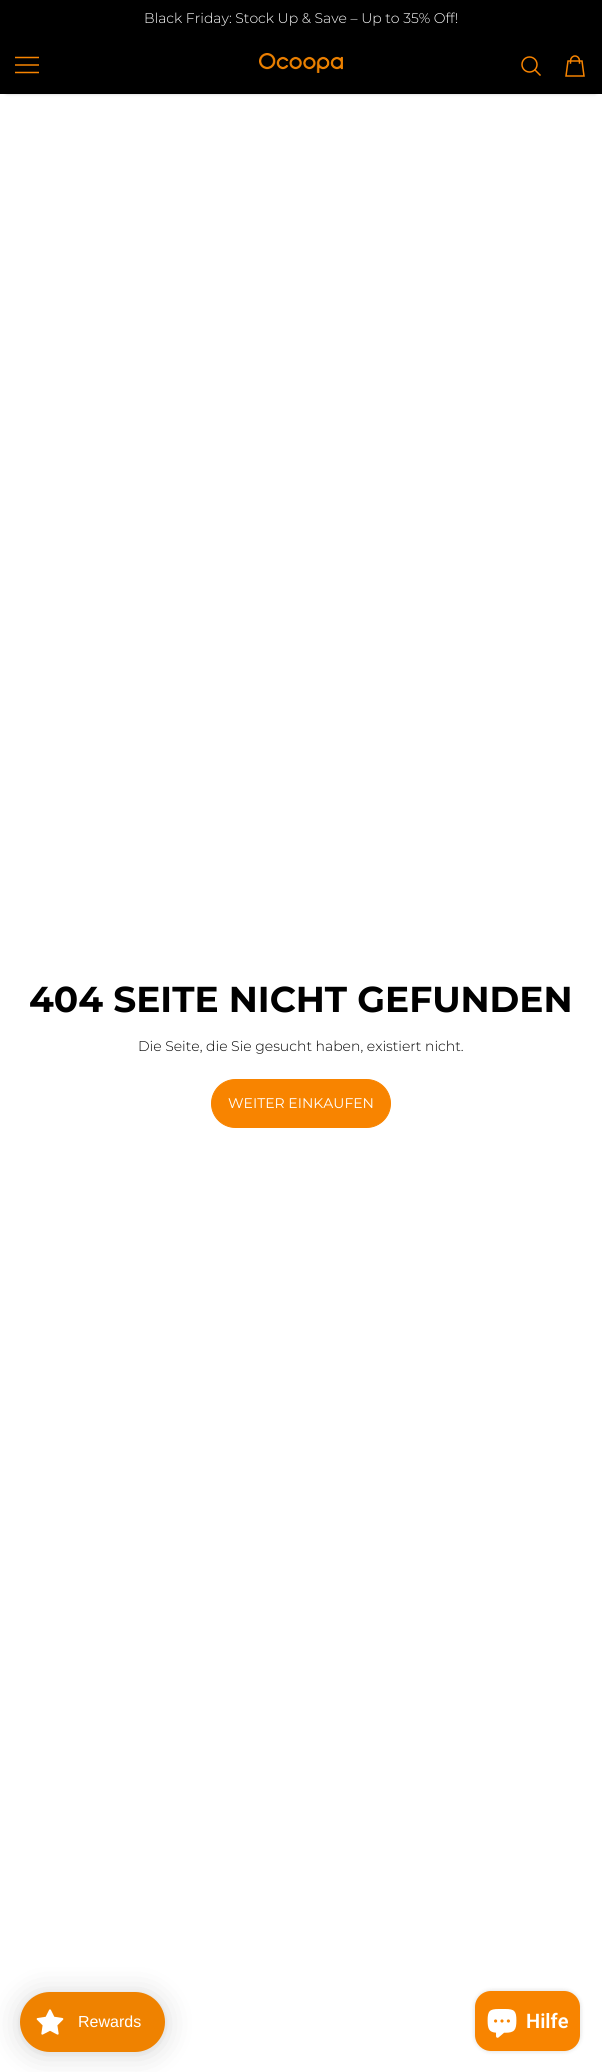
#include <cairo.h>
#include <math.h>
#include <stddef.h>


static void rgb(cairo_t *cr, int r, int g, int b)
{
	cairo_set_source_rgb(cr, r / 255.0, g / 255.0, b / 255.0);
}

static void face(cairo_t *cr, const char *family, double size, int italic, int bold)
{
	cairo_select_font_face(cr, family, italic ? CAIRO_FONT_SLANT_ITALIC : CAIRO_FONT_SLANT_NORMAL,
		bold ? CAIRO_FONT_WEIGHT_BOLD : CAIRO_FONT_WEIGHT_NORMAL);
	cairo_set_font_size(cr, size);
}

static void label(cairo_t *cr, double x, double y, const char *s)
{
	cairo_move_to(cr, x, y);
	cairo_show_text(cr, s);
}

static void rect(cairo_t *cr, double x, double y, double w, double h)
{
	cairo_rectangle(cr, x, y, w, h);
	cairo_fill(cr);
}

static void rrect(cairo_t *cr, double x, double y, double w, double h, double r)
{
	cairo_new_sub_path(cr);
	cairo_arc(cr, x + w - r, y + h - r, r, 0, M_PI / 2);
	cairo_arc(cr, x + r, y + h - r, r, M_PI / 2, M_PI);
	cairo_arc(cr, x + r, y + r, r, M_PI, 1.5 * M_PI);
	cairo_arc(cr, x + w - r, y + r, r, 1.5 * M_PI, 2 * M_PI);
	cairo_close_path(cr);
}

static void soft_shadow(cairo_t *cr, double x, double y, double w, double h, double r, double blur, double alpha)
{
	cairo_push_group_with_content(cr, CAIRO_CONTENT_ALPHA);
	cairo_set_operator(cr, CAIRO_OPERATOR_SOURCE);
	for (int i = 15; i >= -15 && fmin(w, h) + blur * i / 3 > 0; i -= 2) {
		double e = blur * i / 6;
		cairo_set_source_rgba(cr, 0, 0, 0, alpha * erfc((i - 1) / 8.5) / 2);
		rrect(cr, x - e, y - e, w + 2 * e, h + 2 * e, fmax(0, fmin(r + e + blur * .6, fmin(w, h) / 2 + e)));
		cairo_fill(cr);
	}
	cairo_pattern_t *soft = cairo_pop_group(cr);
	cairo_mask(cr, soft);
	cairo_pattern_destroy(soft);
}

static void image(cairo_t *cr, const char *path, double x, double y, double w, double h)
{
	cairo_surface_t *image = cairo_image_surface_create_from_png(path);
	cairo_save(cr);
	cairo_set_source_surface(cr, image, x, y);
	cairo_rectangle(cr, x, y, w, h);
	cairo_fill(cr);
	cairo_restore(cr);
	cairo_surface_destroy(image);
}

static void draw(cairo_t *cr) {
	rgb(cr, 255, 255, 255);
	cairo_paint(cr);
	rgb(cr, 0, 0, 0);
	soft_shadow(cr, 7, 48, 588, 43, 0, 2.5, 1);
	rgb(cr, 0, 0, 0);
	rect(cr, 0, 0, 602, 94);
	cairo_new_path(cr);
	cairo_move_to(cr, 15, 57.5);
	cairo_line_to(cr, 39, 57.5);
	rgb(cr, 248, 132, 0);
	cairo_set_line_width(cr, 1.5);
	cairo_stroke(cr);
	rgb(cr, 186, 99, 0);
	rect(cr, 15, 64, 24, 2);
	cairo_new_path(cr);
	cairo_move_to(cr, 15, 72.5);
	cairo_line_to(cr, 39, 72.5);
	rgb(cr, 248, 132, 0);
	cairo_stroke(cr);
	image(cr, "image0.png", 259, 53, 84, 20);
	image(cr, "image1.png", 521, 56, 20, 20);
	image(cr, "image2.png", 565, 55, 20, 22);
	face(cr, "Montserrat Light", 14, 0, 0);
	rgb(cr, 255, 255, 255);
	label(cr, 144, 23, "Black Friday: Stock Up & Save – Up to 35% Off!");
	face(cr, "Montserrat", 36, 0, 1);
	rgb(cr, 0, 0, 0);
	label(cr, 29, 1012, "404 SEITE NICHT GEFUNDEN");
	face(cr, "Montserrat Light", 14, 0, 0);
	label(cr, 138, 1051, "Die Seite, die Sie gesucht haben, existiert nicht.");
	rgb(cr, 248, 132, 0);
	rrect(cr, 211.5, 1079.5, 179, 48, 24);
	cairo_fill_preserve(cr);
	cairo_set_line_width(cr, 1);
	cairo_stroke(cr);
	face(cr, "Montserrat", 14, 0, 0);
	rgb(cr, 255, 255, 255);
	label(cr, 228, 1108, "WEITER EINKAUFEN");
	rgb(cr, 0, 0, 0);
	soft_shadow(cr, 20, 1994, 145, 60, 30, 15, 0.15);
	soft_shadow(cr, 20, 1993, 145, 60, 30, 3, 0.05);
	rgb(cr, 239, 130, 0);
	rrect(cr, 20, 1992, 145, 60, 30);
	cairo_fill(cr);
	image(cr, "image3.png", 36, 2009, 28, 26);
	face(cr, "Liberation Sans", 16, 0, 0);
	rgb(cr, 255, 255, 255);
	label(cr, 78, 2027, "Rewards");
	rgb(cr, 0, 0, 0);
	soft_shadow(cr, 475, 1991, 105, 60, 16, 2.5, 0.15);
	rgb(cr, 248, 132, 0);
	rrect(cr, 475, 1991, 105, 60, 16);
	cairo_fill(cr);
	image(cr, "image4.png", 487, 2009, 30, 29);
	face(cr, "Roboto SemiBold", 20, 0, 0);
	rgb(cr, 255, 255, 255);
	label(cr, 526, 2028, "Hilfe");
}

int main(void) {
	cairo_surface_t *surface = cairo_image_surface_create(CAIRO_FORMAT_RGB24, 602, 2072);
	cairo_t *cr = cairo_create(surface);
	cairo_font_options_t *options = cairo_font_options_create();
	cairo_font_options_set_hint_metrics(options, CAIRO_HINT_METRICS_OFF);
	cairo_font_options_set_hint_style(options, CAIRO_HINT_STYLE_NONE);
	cairo_set_font_options(cr, options);
	cairo_set_miter_limit(cr, 4);
	draw(cr);
	cairo_surface_write_to_png(surface, "render.png");
	cairo_font_options_destroy(options);
	cairo_destroy(cr);
	cairo_surface_destroy(surface);
	return 0;
}
